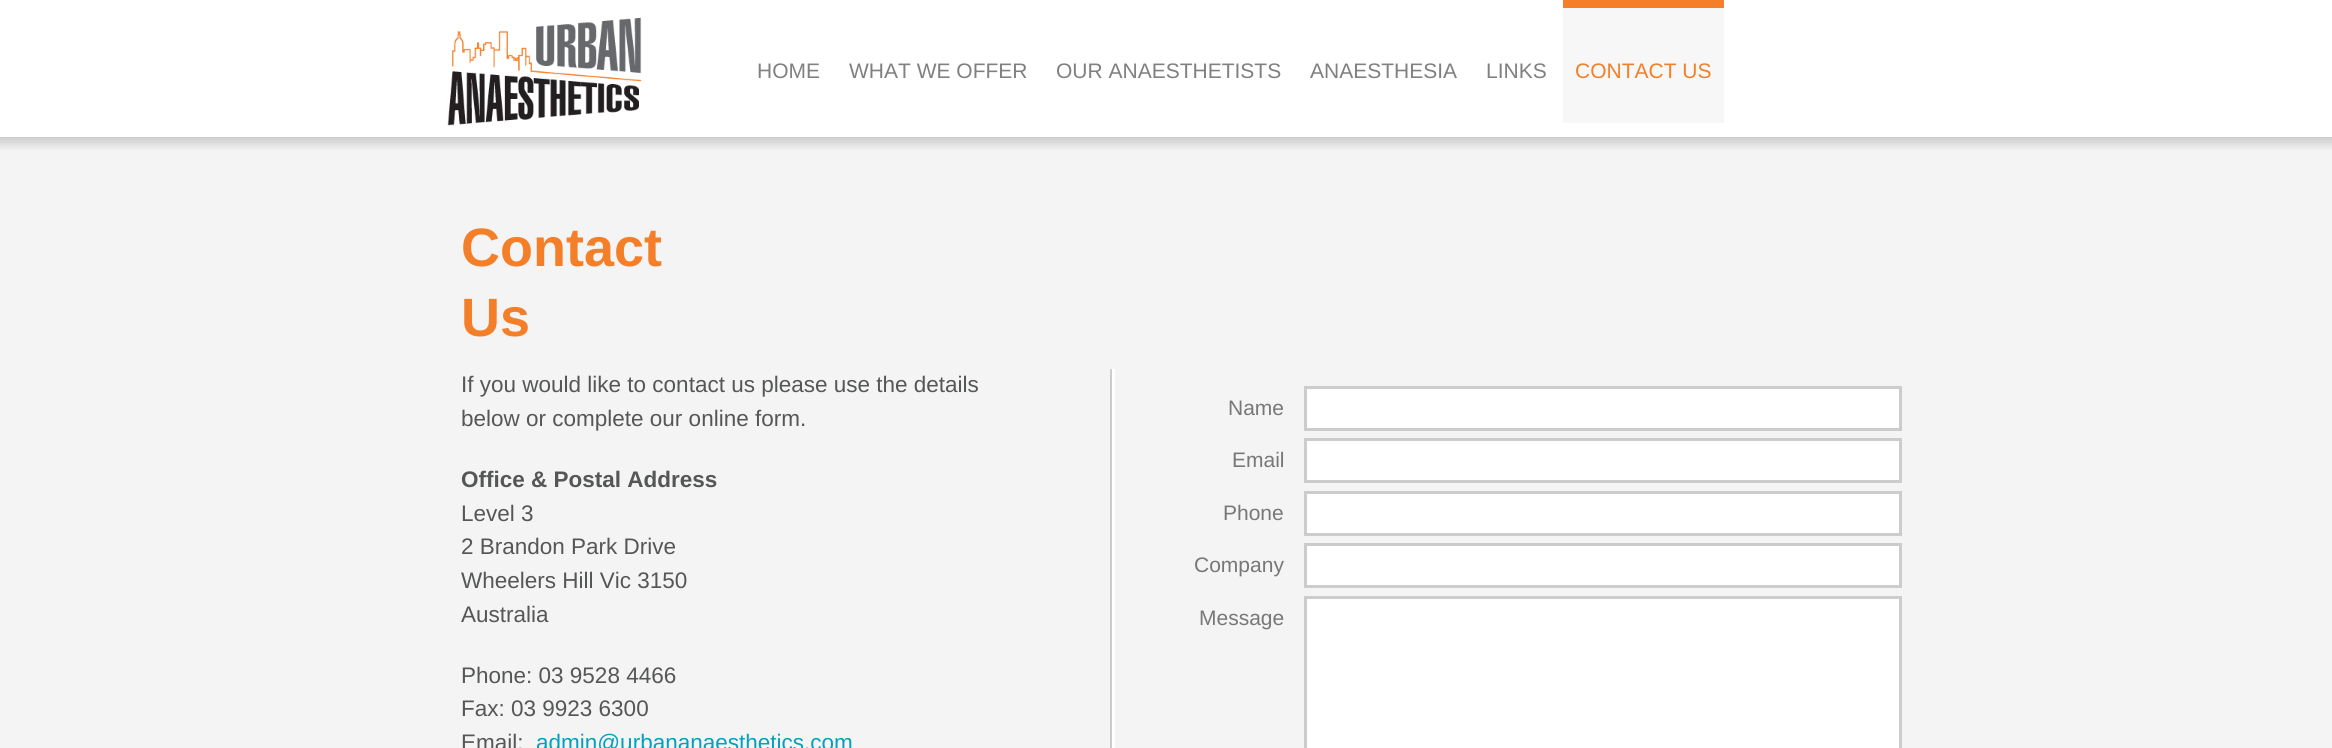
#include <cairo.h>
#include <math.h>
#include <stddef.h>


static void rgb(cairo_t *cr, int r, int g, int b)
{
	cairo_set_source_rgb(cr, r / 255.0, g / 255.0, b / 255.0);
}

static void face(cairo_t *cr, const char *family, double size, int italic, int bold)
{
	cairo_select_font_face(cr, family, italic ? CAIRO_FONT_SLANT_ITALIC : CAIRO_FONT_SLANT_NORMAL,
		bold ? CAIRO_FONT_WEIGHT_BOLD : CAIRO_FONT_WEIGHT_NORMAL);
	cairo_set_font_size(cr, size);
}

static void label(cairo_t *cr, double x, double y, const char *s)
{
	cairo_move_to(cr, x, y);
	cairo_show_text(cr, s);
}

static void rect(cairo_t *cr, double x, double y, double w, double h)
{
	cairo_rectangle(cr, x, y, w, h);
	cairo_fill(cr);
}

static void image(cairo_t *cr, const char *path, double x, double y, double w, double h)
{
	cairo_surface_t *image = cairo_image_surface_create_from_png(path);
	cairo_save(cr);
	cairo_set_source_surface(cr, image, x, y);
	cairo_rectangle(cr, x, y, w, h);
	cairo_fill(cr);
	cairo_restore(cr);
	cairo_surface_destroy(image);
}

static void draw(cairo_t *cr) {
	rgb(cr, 255, 255, 255);
	cairo_paint(cr);
	rgb(cr, 204, 204, 204);
	rect(cr, 0, 137, 2332, 1);
	image(cr, "image0.png", 447, 17, 195, 109);
	face(cr, "Liberation Sans", 21, 0, 0);
	rgb(cr, 128, 128, 128);
	label(cr, 757, 78, "HOME");
	label(cr, 849, 78, "WHAT WE OFFER");
	label(cr, 1056, 78, "OUR ANAESTHETISTS");
	label(cr, 1310, 78, "ANAESTHESIA");
	label(cr, 1486, 78, "LINKS");
	rgb(cr, 247, 247, 247);
	rect(cr, 1563, 8, 161, 115);
	rgb(cr, 244, 127, 40);
	rect(cr, 1563, 0, 161, 8);
	label(cr, 1575, 78, "CONTACT US");
	rgb(cr, 244, 244, 244);
	rect(cr, 0, 150, 2332, 598);
	image(cr, "image1.png", 0, 138, 2332, 12);
	face(cr, "Liberation Sans", 54, 0, 1);
	rgb(cr, 244, 127, 40);
	label(cr, 461, 266, "Contact");
	label(cr, 461, 336, "Us");
	face(cr, "Liberation Sans", 22.5, 0, 0);
	rgb(cr, 85, 86, 86);
	label(cr, 461, 392, "If you would like to contact us please use the details");
	label(cr, 461, 426, "below or complete our online form.");
	face(cr, "Liberation Sans", 22.5, 0, 1);
	label(cr, 461, 487, "Office & Postal Address");
	face(cr, "Liberation Sans", 22.5, 0, 0);
	label(cr, 461, 521, "Level 3");
	label(cr, 461, 554, "2 Brandon Park Drive");
	label(cr, 461, 588, "Wheelers Hill Vic 3150");
	label(cr, 461, 622, "Australia");
	label(cr, 461, 683, "Phone: 03 9528 4466");
	label(cr, 461, 716, "Fax: 03 9923 6300");
	label(cr, 461, 750, "Email:");
	rgb(cr, 0, 162, 191);
	label(cr, 536, 750, "admin@urbananaesthetics.com");
	rgb(cr, 204, 204, 204);
	rect(cr, 1110, 369, 2, 379);
	rgb(cr, 255, 255, 255);
	rect(cr, 1112, 369, 3, 379);
	face(cr, "Liberation Sans", 21, 0, 0);
	rgb(cr, 119, 119, 119);
	label(cr, 1228, 415, "Name");
	rgb(cr, 255, 255, 255);
	cairo_rectangle(cr, 1305.5, 387.5, 595, 42);
	cairo_fill_preserve(cr);
	rgb(cr, 204, 204, 204);
	cairo_set_line_width(cr, 3);
	cairo_stroke(cr);
	rgb(cr, 119, 119, 119);
	label(cr, 1232, 467, "Email");
	rgb(cr, 255, 255, 255);
	cairo_rectangle(cr, 1305.5, 439.5, 595, 42);
	cairo_fill_preserve(cr);
	rgb(cr, 204, 204, 204);
	cairo_stroke(cr);
	rgb(cr, 119, 119, 119);
	label(cr, 1223, 520, "Phone");
	rgb(cr, 255, 255, 255);
	cairo_rectangle(cr, 1305.5, 492.5, 595, 42);
	cairo_fill_preserve(cr);
	rgb(cr, 204, 204, 204);
	cairo_stroke(cr);
	rgb(cr, 119, 119, 119);
	label(cr, 1194, 572, "Company");
	rgb(cr, 255, 255, 255);
	cairo_rectangle(cr, 1305.5, 544.5, 595, 42);
	cairo_fill_preserve(cr);
	rgb(cr, 204, 204, 204);
	cairo_stroke(cr);
	rgb(cr, 119, 119, 119);
	label(cr, 1199, 625, "Message");
	rgb(cr, 255, 255, 255);
	cairo_rectangle(cr, 1305.5, 597.5, 595, 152);
	cairo_fill_preserve(cr);
	rgb(cr, 204, 204, 204);
	cairo_stroke(cr);
}

int main(void) {
	cairo_surface_t *surface = cairo_image_surface_create(CAIRO_FORMAT_RGB24, 2332, 748);
	cairo_t *cr = cairo_create(surface);
	cairo_font_options_t *options = cairo_font_options_create();
	cairo_font_options_set_hint_metrics(options, CAIRO_HINT_METRICS_OFF);
	cairo_font_options_set_hint_style(options, CAIRO_HINT_STYLE_NONE);
	cairo_set_font_options(cr, options);
	cairo_set_miter_limit(cr, 4);
	draw(cr);
	cairo_surface_write_to_png(surface, "render.png");
	cairo_font_options_destroy(options);
	cairo_destroy(cr);
	cairo_surface_destroy(surface);
	return 0;
}
